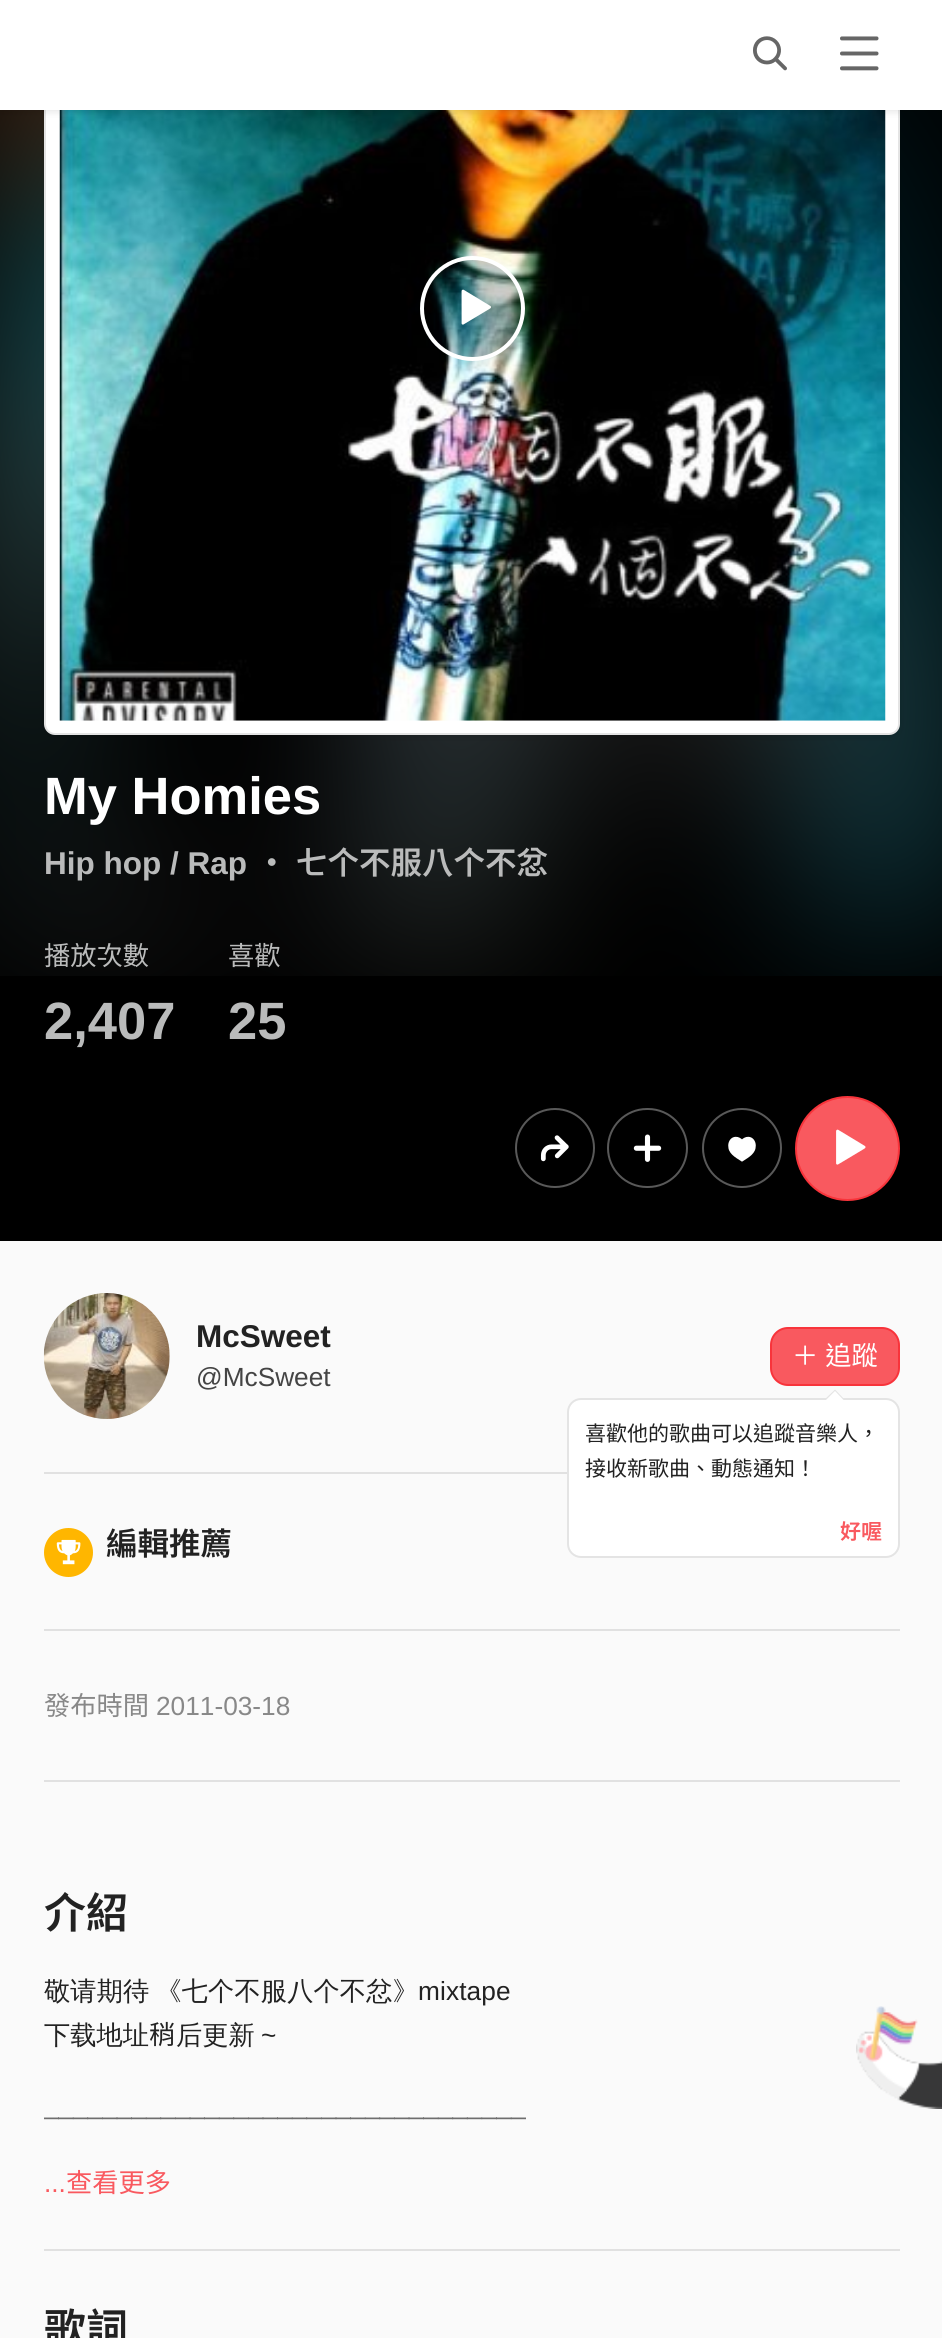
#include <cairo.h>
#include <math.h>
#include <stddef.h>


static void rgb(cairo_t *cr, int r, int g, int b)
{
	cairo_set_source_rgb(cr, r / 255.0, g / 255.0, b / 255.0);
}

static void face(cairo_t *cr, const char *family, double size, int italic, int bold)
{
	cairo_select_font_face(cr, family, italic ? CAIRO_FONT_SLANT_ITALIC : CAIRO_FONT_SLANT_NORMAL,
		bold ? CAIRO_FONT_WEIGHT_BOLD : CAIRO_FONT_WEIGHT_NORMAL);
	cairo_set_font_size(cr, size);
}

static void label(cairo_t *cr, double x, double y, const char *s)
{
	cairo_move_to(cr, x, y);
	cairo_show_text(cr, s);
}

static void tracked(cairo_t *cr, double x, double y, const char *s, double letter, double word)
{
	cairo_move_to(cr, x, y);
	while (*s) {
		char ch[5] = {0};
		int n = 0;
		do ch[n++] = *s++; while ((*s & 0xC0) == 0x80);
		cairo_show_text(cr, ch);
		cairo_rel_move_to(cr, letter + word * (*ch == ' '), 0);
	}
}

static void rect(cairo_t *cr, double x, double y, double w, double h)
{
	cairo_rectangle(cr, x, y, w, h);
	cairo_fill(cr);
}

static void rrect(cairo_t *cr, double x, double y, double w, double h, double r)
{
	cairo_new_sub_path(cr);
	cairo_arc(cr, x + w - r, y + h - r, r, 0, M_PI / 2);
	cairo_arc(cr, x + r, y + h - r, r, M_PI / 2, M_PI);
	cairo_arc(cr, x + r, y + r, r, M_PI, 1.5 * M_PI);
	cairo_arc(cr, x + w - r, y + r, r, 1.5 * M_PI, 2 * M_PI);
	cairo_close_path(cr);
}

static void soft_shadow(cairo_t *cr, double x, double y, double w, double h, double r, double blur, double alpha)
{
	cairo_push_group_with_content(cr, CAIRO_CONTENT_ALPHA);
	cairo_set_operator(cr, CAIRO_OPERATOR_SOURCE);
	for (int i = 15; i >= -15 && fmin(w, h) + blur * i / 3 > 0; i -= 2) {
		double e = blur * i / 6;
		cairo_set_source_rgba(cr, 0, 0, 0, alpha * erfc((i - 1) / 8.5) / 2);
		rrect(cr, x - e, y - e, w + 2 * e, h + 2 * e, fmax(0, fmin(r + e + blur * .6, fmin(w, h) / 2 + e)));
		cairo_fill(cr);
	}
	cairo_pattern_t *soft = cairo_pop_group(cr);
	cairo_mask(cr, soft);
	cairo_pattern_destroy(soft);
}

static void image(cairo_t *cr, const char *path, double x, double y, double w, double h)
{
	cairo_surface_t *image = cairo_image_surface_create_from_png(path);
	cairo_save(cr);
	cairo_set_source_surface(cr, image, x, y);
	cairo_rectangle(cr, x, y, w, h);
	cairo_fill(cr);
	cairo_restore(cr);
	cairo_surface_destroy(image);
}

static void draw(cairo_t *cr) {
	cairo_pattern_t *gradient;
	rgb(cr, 250, 250, 250);
	cairo_paint(cr);
	rgb(cr, 0, 0, 0);
	rect(cr, 0, 110, 942, 1131);
	image(cr, "image2.png", 0, 110, 942, 866);
	rgb(cr, 0, 0, 0);
	soft_shadow(cr, 44, -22, 856, 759, 11, 3.5, 0.1);
	rgb(cr, 255, 255, 255);
	rrect(cr, 45, -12, 854, 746, 10);
	cairo_fill_preserve(cr);
	rgb(cr, 228, 228, 228);
	cairo_stroke(cr);
	image(cr, "image3.png", 59, 110, 827, 611);
	rgb(cr, 0, 0, 0);
	soft_shadow(cr, 0, 2, 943, 110, 0, 3.5, 0.1);
	rgb(cr, 255, 255, 255);
	rect(cr, 0, 0, 942, 110);
	image(cr, "image0.png", 753, 36, 34, 35);
	image(cr, "image1.png", 840, 36, 39, 35);
	cairo_set_source_rgba(cr, 0, 0, 0, 0.2);
	cairo_arc(cr, 472.5, 308.5, 50.5, 0, 2 * M_PI);
	cairo_fill_preserve(cr);
	rgb(cr, 255, 255, 255);
	cairo_set_line_width(cr, 4);
	cairo_stroke(cr);
	image(cr, "image4.png", 461, 289, 30, 36);
	face(cr, "Liberation Sans", 52.5, 0, 1);
	label(cr, 44, 814, "My Homies");
	face(cr, "Liberation Sans", 31.5, 0, 1);
	rgb(cr, 186, 187, 187);
	label(cr, 44, 874, "Hip hop / Rap");
	face(cr, "Noto Sans TC SemiBold", 31.5, 0, 0);
	label(cr, 256, 874, "・");
	label(cr, 296, 874, "七个不服八个不忿");
	face(cr, "Noto Sans TC", 26.25, 0, 0);
	label(cr, 44, 965, "播放次數");
	face(cr, "Liberation Sans", 52.5, 0, 1);
	label(cr, 44, 1039, "2,407");
	face(cr, "Noto Sans TC", 26.25, 0, 0);
	label(cr, 228, 965, "喜歡");
	face(cr, "Liberation Sans", 52.5, 0, 1);
	label(cr, 228, 1039, "25");
	cairo_new_path(cr);
	cairo_arc(cr, 555, 1148, 39, 0, 2 * M_PI);
	rgb(cr, 89, 89, 89);
	cairo_set_line_width(cr, 2);
	cairo_stroke(cr);
	image(cr, "image5.png", 540, 1135, 29, 27);
	rrect(cr, 608, 1109, 79, 78, 39);
	cairo_stroke(cr);
	image(cr, "image6.png", 633, 1134, 29, 28);
	cairo_arc(cr, 742, 1148, 39, 0, 2 * M_PI);
	cairo_stroke(cr);
	image(cr, "image7.png", 728, 1136, 28, 26);
	rgb(cr, 249, 89, 95);
	cairo_arc(cr, 847.5, 1148.5, 51.5, 0, 2 * M_PI);
	cairo_fill_preserve(cr);
	rgb(cr, 248, 52, 59);
	cairo_stroke(cr);
	image(cr, "image8.png", 836, 1129, 30, 36);
	image(cr, "image9.png", 43, 1293, 127, 126);
	face(cr, "Liberation Sans", 31.5, 0, 1);
	rgb(cr, 34, 34, 34);
	label(cr, 196, 1347, "McSweet");
	face(cr, "Liberation Sans", 26.25, 0, 0);
	rgb(cr, 68, 68, 68);
	label(cr, 196, 1386, "@McSweet");
	rgb(cr, 249, 89, 95);
	rrect(cr, 771, 1328, 128, 57, 17);
	cairo_fill_preserve(cr);
	rgb(cr, 248, 52, 59);
	cairo_stroke(cr);
	face(cr, "Noto Sans TC", 26.25, 0, 0);
	rgb(cr, 255, 255, 255);
	tracked(cr, 792, 1365, "＋ 追蹤", 0, 1);
	rrect(cr, 568, 1399, 331, 158, 13);
	cairo_fill_preserve(cr);
	rgb(cr, 228, 228, 228);
	cairo_stroke(cr);
	cairo_new_path(cr);
	cairo_move_to(cr, 845, 1400);
	cairo_line_to(cr, 824, 1400);
	cairo_line_to(cr, 835, 1389.5);
	cairo_close_path(cr);
	cairo_fill(cr);
	rgb(cr, 255, 255, 255);
	cairo_new_path(cr);
	cairo_move_to(cr, 843.5, 1400);
	cairo_line_to(cr, 826, 1400);
	cairo_line_to(cr, 835, 1391);
	cairo_close_path(cr);
	cairo_fill(cr);
	face(cr, "Noto Sans TC", 21, 0, 0);
	rgb(cr, 34, 34, 34);
	label(cr, 585, 1441, "喜歡他的歌曲可以追蹤音樂人，");
	label(cr, 585, 1476, "接收新歌曲、動態通知！");
	face(cr, "Noto Sans TC SemiBold", 21, 0, 0);
	rgb(cr, 249, 89, 95);
	label(cr, 840, 1539, "好喔");
	rgb(cr, 225, 225, 225);
	rect(cr, 44, 1472, 523, 2);
	rgb(cr, 255, 182, 0);
	cairo_new_path(cr);
	cairo_arc(cr, 68.5, 1552.5, 24.5, 0, 2 * M_PI);
	cairo_fill(cr);
	image(cr, "image10.png", 56, 1539, 25, 26);
	face(cr, "Noto Sans TC SemiBold", 31.5, 0, 0);
	rgb(cr, 34, 34, 34);
	label(cr, 106, 1555, "編輯推薦");
	rgb(cr, 225, 225, 225);
	rect(cr, 44, 1629, 856, 2);
	face(cr, "Noto Sans TC", 26.25, 0, 0);
	rgb(cr, 136, 136, 136);
	label(cr, 44, 1715, "發布時間");
	face(cr, "Liberation Sans", 26.25, 0, 0);
	label(cr, 156, 1715, "2011-03-18");
	rgb(cr, 225, 225, 225);
	rect(cr, 44, 1780, 856, 2);
	face(cr, "Noto Sans TC SemiBold", 42, 0, 0);
	rgb(cr, 34, 34, 34);
	label(cr, 44, 1928, "介紹");
	face(cr, "WenQuanYi Zen Hei Medium", 26.25, 0, 0);
	tracked(cr, 44, 2000, "敬请期待 《七个不服八个不忿》", 0.1, -2);
	face(cr, "Liberation Sans", 26.25, 0, 0);
	tracked(cr, 418, 2000, "mixtape", 0.1, 0);
	face(cr, "WenQuanYi Zen Hei Medium", 26.25, 0, 0);
	label(cr, 44, 2044, "下载地址");
	face(cr, "Noto Sans TC", 26.25, 0, 0);
	label(cr, 149, 2044, "稍");
	face(cr, "WenQuanYi Zen Hei Medium", 26.25, 0, 0);
	label(cr, 176, 2044, "后更新");
	face(cr, "Liberation Sans", 26.25, 0, 0);
	label(cr, 261, 2044, "~");
	cairo_save(cr);
	cairo_rectangle(cr, 44, 1969, 856, 227);
	cairo_clip(cr);
	label(cr, 44, 2114, "_________________________________");
	cairo_restore(cr);
	gradient = cairo_pattern_create_linear(472, 2100, 472, 2205);
	cairo_pattern_add_color_stop_rgba(gradient, 0, 0.98, 0.98, 0.98, 0);
	cairo_pattern_add_color_stop_rgba(gradient, 0.5, 0.98, 0.98, 0.98, 1);
	cairo_set_source(cr, gradient);
	cairo_pattern_destroy(gradient);
	rect(cr, 44, 2117, 482, 3);
	rgb(cr, 249, 89, 95);
	label(cr, 44, 2192, "...");
	face(cr, "Noto Sans TC", 26.25, 0, 0);
	label(cr, 66, 2192, "查看更多");
	rgb(cr, 225, 225, 225);
	rect(cr, 44, 2249, 856, 2);
	face(cr, "Noto Sans TC SemiBold", 42, 0, 0);
	rgb(cr, 34, 34, 34);
	label(cr, 44, 2344, "歌詞");
	image(cr, "image11.png", 856, 2006, 86, 103);
}

int main(void) {
	cairo_surface_t *surface = cairo_image_surface_create(CAIRO_FORMAT_RGB24, 942, 2338);
	cairo_t *cr = cairo_create(surface);
	cairo_font_options_t *options = cairo_font_options_create();
	cairo_font_options_set_hint_metrics(options, CAIRO_HINT_METRICS_OFF);
	cairo_font_options_set_hint_style(options, CAIRO_HINT_STYLE_NONE);
	cairo_set_font_options(cr, options);
	cairo_set_miter_limit(cr, 4);
	draw(cr);
	cairo_surface_write_to_png(surface, "render.png");
	cairo_font_options_destroy(options);
	cairo_destroy(cr);
	cairo_surface_destroy(surface);
	return 0;
}
